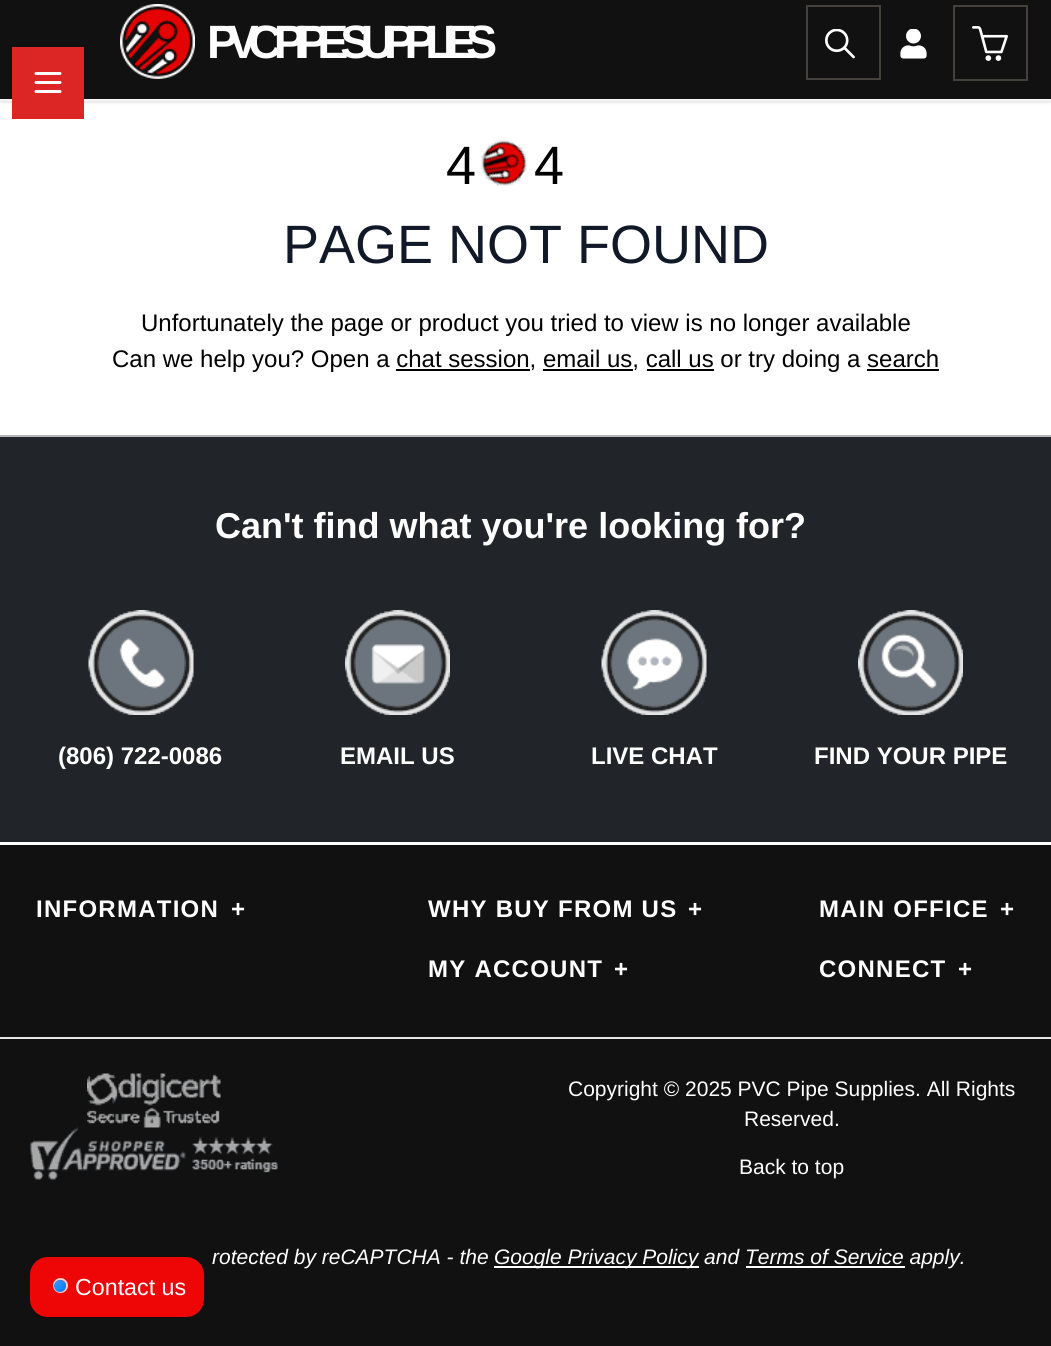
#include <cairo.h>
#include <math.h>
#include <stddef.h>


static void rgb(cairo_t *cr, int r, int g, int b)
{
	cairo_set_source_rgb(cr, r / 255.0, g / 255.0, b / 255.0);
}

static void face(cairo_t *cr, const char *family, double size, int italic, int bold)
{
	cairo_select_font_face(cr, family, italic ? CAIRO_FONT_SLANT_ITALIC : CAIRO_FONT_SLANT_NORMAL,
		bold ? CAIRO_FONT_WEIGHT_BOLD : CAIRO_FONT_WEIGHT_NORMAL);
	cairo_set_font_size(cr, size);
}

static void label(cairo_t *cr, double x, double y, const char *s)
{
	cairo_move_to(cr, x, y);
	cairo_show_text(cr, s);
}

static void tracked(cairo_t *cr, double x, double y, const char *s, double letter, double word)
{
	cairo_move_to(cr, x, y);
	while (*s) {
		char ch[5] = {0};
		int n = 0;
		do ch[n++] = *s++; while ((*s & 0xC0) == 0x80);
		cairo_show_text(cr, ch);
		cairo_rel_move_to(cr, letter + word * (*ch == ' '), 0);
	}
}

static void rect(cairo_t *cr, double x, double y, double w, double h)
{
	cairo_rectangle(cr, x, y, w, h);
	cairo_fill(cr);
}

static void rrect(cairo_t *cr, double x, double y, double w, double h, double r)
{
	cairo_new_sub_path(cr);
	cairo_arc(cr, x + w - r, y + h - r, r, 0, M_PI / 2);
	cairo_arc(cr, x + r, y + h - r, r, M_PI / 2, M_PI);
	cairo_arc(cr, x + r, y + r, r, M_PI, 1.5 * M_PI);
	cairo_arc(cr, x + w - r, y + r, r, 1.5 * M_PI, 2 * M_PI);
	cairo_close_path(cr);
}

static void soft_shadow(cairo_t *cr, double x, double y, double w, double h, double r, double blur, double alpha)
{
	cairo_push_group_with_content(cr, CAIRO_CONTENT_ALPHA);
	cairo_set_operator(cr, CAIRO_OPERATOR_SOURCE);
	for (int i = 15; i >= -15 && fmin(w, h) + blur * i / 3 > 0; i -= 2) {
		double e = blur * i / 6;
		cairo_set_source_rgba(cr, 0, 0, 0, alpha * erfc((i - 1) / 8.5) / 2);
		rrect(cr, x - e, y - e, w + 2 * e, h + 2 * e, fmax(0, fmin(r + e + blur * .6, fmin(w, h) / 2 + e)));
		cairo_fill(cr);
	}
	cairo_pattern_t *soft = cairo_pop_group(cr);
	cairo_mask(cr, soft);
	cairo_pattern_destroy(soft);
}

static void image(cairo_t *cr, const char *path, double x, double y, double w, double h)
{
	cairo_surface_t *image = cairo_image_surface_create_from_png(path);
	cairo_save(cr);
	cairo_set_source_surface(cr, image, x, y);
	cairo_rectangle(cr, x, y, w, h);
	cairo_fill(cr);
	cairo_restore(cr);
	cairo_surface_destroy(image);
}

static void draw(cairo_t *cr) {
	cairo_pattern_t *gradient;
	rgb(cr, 255, 255, 255);
	cairo_paint(cr);
	rgb(cr, 0, 0, 0);
	soft_shadow(cr, 2, -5, 1048, 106, 0, 1.5, 0.1);
	soft_shadow(cr, 0, -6, 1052, 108, 0, 2, 0.1);
	rgb(cr, 17, 17, 17);
	rect(cr, 0, 0, 1051, 99);
	rgb(cr, 245, 245, 245);
	rect(cr, 0, 99, 1051, 2);
	image(cr, "image0.png", 120, 4, 75, 75);
	face(cr, "Liberation Sans", 46.75, 0, 1);
	rgb(cr, 255, 255, 255);
	tracked(cr, 207, 58, "PVC PIPE SUPPLIES", -10.6, 0);
	cairo_rectangle(cr, 807, 6, 73, 73);
	rgb(cr, 68, 64, 60);
	cairo_stroke(cr);
	image(cr, "image1.png", 825, 29, 30, 30);
	image(cr, "image2.png", 900, 29, 27, 30);
	cairo_rectangle(cr, 954, 6, 73, 74);
	cairo_stroke(cr);
	image(cr, "image3.png", 972, 26, 36, 35);
	rgb(cr, 220, 38, 38);
	rect(cr, 12, 47, 72, 72);
	cairo_new_path(cr);
	cairo_move_to(cr, 36, 73.5);
	cairo_line_to(cr, 60, 73.5);
	cairo_move_to(cr, 36, 82.5);
	cairo_line_to(cr, 60, 82.5);
	cairo_move_to(cr, 36, 91.5);
	cairo_line_to(cr, 60, 91.5);
	rgb(cr, 255, 255, 255);
	cairo_set_line_width(cr, 3);
	cairo_set_line_cap(cr, CAIRO_LINE_CAP_ROUND);
	cairo_set_line_join(cr, CAIRO_LINE_JOIN_ROUND);
	cairo_stroke(cr);
	face(cr, "Liberation Sans", 54, 0, 0);
	rgb(cr, 0, 0, 0);
	label(cr, 446, 184, "4");
	image(cr, "image4.png", 481, 140, 46, 46);
	label(cr, 534, 184, "4");
	rgb(cr, 17, 24, 39);
	label(cr, 283, 263, "PAGE NOT FOUND");
	face(cr, "Liberation Sans", 24, 0, 0);
	rgb(cr, 0, 0, 0);
	label(cr, 141, 331, "Unfortunately the page or product you tried to view is no longer available");
	label(cr, 112, 367, "Can we help you? Open a chat session, email us, call us or try doing a search");
	rect(cr, 396, 369, 134, 2);
	rect(cr, 543, 369, 90, 2);
	rect(cr, 647, 369, 67, 2);
	rect(cr, 867, 369, 72, 2);
	rgb(cr, 17, 17, 17);
	rect(cr, 0, 845, 1051, 501);
	rgb(cr, 182, 182, 182);
	rect(cr, 0, 435, 1051, 2);
	rgb(cr, 33, 37, 41);
	rect(cr, 0, 437, 1051, 405);
	face(cr, "Liberation Sans", 36, 0, 1);
	rgb(cr, 255, 255, 255);
	label(cr, 215, 538, "Can't find what you're looking for?");
	image(cr, "image5.png", 88, 610, 106, 105);
	face(cr, "Liberation Sans", 24, 0, 1);
	label(cr, 58, 764, "(806) 722-0086");
	image(cr, "image6.png", 345, 610, 105, 105);
	label(cr, 340, 764, "EMAIL US");
	image(cr, "image7.png", 601, 610, 106, 105);
	label(cr, 591, 764, "LIVE CHAT");
	image(cr, "image8.png", 858, 610, 105, 105);
	label(cr, 814, 764, "FIND YOUR PIPE");
	tracked(cr, 36, 917, "INFORMATION", 1.25, 0);
	tracked(cr, 231, 917, "+", 1.25, 0);
	tracked(cr, 428, 917, "WHY BUY FROM US", 1.25, 0);
	tracked(cr, 688, 917, "+", 1.25, 0);
	tracked(cr, 428, 977, "MY ACCOUNT", 1.25, 0);
	tracked(cr, 614, 977, "+", 1.25, 0);
	tracked(cr, 819, 917, "MAIN OFFICE", 1.25, 0);
	tracked(cr, 1000, 917, "+", 1.25, 0);
	tracked(cr, 819, 977, "CONNECT", 1.25, 0);
	tracked(cr, 958, 977, "+", 1.25, 0);
	rgb(cr, 238, 5, 5);
	rrect(cr, 30, 1257, 174, 60, 18);
	cairo_fill(cr);
	cairo_arc(cr, 60.5, 1285.5, 6.5, 0, 2 * M_PI);
	rgb(cr, 252, 205, 205);
	cairo_set_line_width(cr, 2);
	cairo_set_line_cap(cr, CAIRO_LINE_CAP_BUTT);
	cairo_set_line_join(cr, CAIRO_LINE_JOIN_MITER);
	cairo_stroke(cr);
	gradient = cairo_pattern_create_linear(54, 1280, 66, 1292);
	cairo_pattern_add_color_stop_rgba(gradient, 0, 0.231, 0.6, 0.988, 1);
	cairo_pattern_add_color_stop_rgba(gradient, 1, 0.016, 0.475, 0.961, 1);
	cairo_set_source(cr, gradient);
	cairo_pattern_destroy(gradient);
	cairo_arc(cr, 60, 1286, 6, 0, 2 * M_PI);
	cairo_fill(cr);
	face(cr, "Liberation Sans", 23.25, 0, 0);
	rgb(cr, 255, 255, 255);
	label(cr, 75, 1295, "Contact us");
	rgb(cr, 231, 231, 231);
	rect(cr, 0, 1037, 1051, 2);
	image(cr, "image9.png", 87, 1073, 134, 55);
	image(cr, "image10.png", 30, 1127, 248, 53);
	face(cr, "Liberation Sans", 21, 0, 0);
	rgb(cr, 255, 255, 255);
	label(cr, 568, 1096, "Copyright © 2025 PVC Pipe Supplies. All Rights");
	label(cr, 744, 1126, "Reserved.");
	label(cr, 739, 1174, "Back to top");
	face(cr, "Liberation Sans", 21, 1, 0);
	label(cr, 212, 1264, "rotected by reCAPTCHA - the");
	rect(cr, 494, 1266, 205, 2);
	label(cr, 494, 1264, "Google Privacy Policy and Terms of Service apply.");
	rect(cr, 746, 1266, 159, 2);
}

int main(void) {
	cairo_surface_t *surface = cairo_image_surface_create(CAIRO_FORMAT_RGB24, 1051, 1346);
	cairo_t *cr = cairo_create(surface);
	cairo_font_options_t *options = cairo_font_options_create();
	cairo_font_options_set_hint_metrics(options, CAIRO_HINT_METRICS_OFF);
	cairo_font_options_set_hint_style(options, CAIRO_HINT_STYLE_NONE);
	cairo_set_font_options(cr, options);
	cairo_set_miter_limit(cr, 4);
	draw(cr);
	cairo_surface_write_to_png(surface, "render.png");
	cairo_font_options_destroy(options);
	cairo_destroy(cr);
	cairo_surface_destroy(surface);
	return 0;
}
